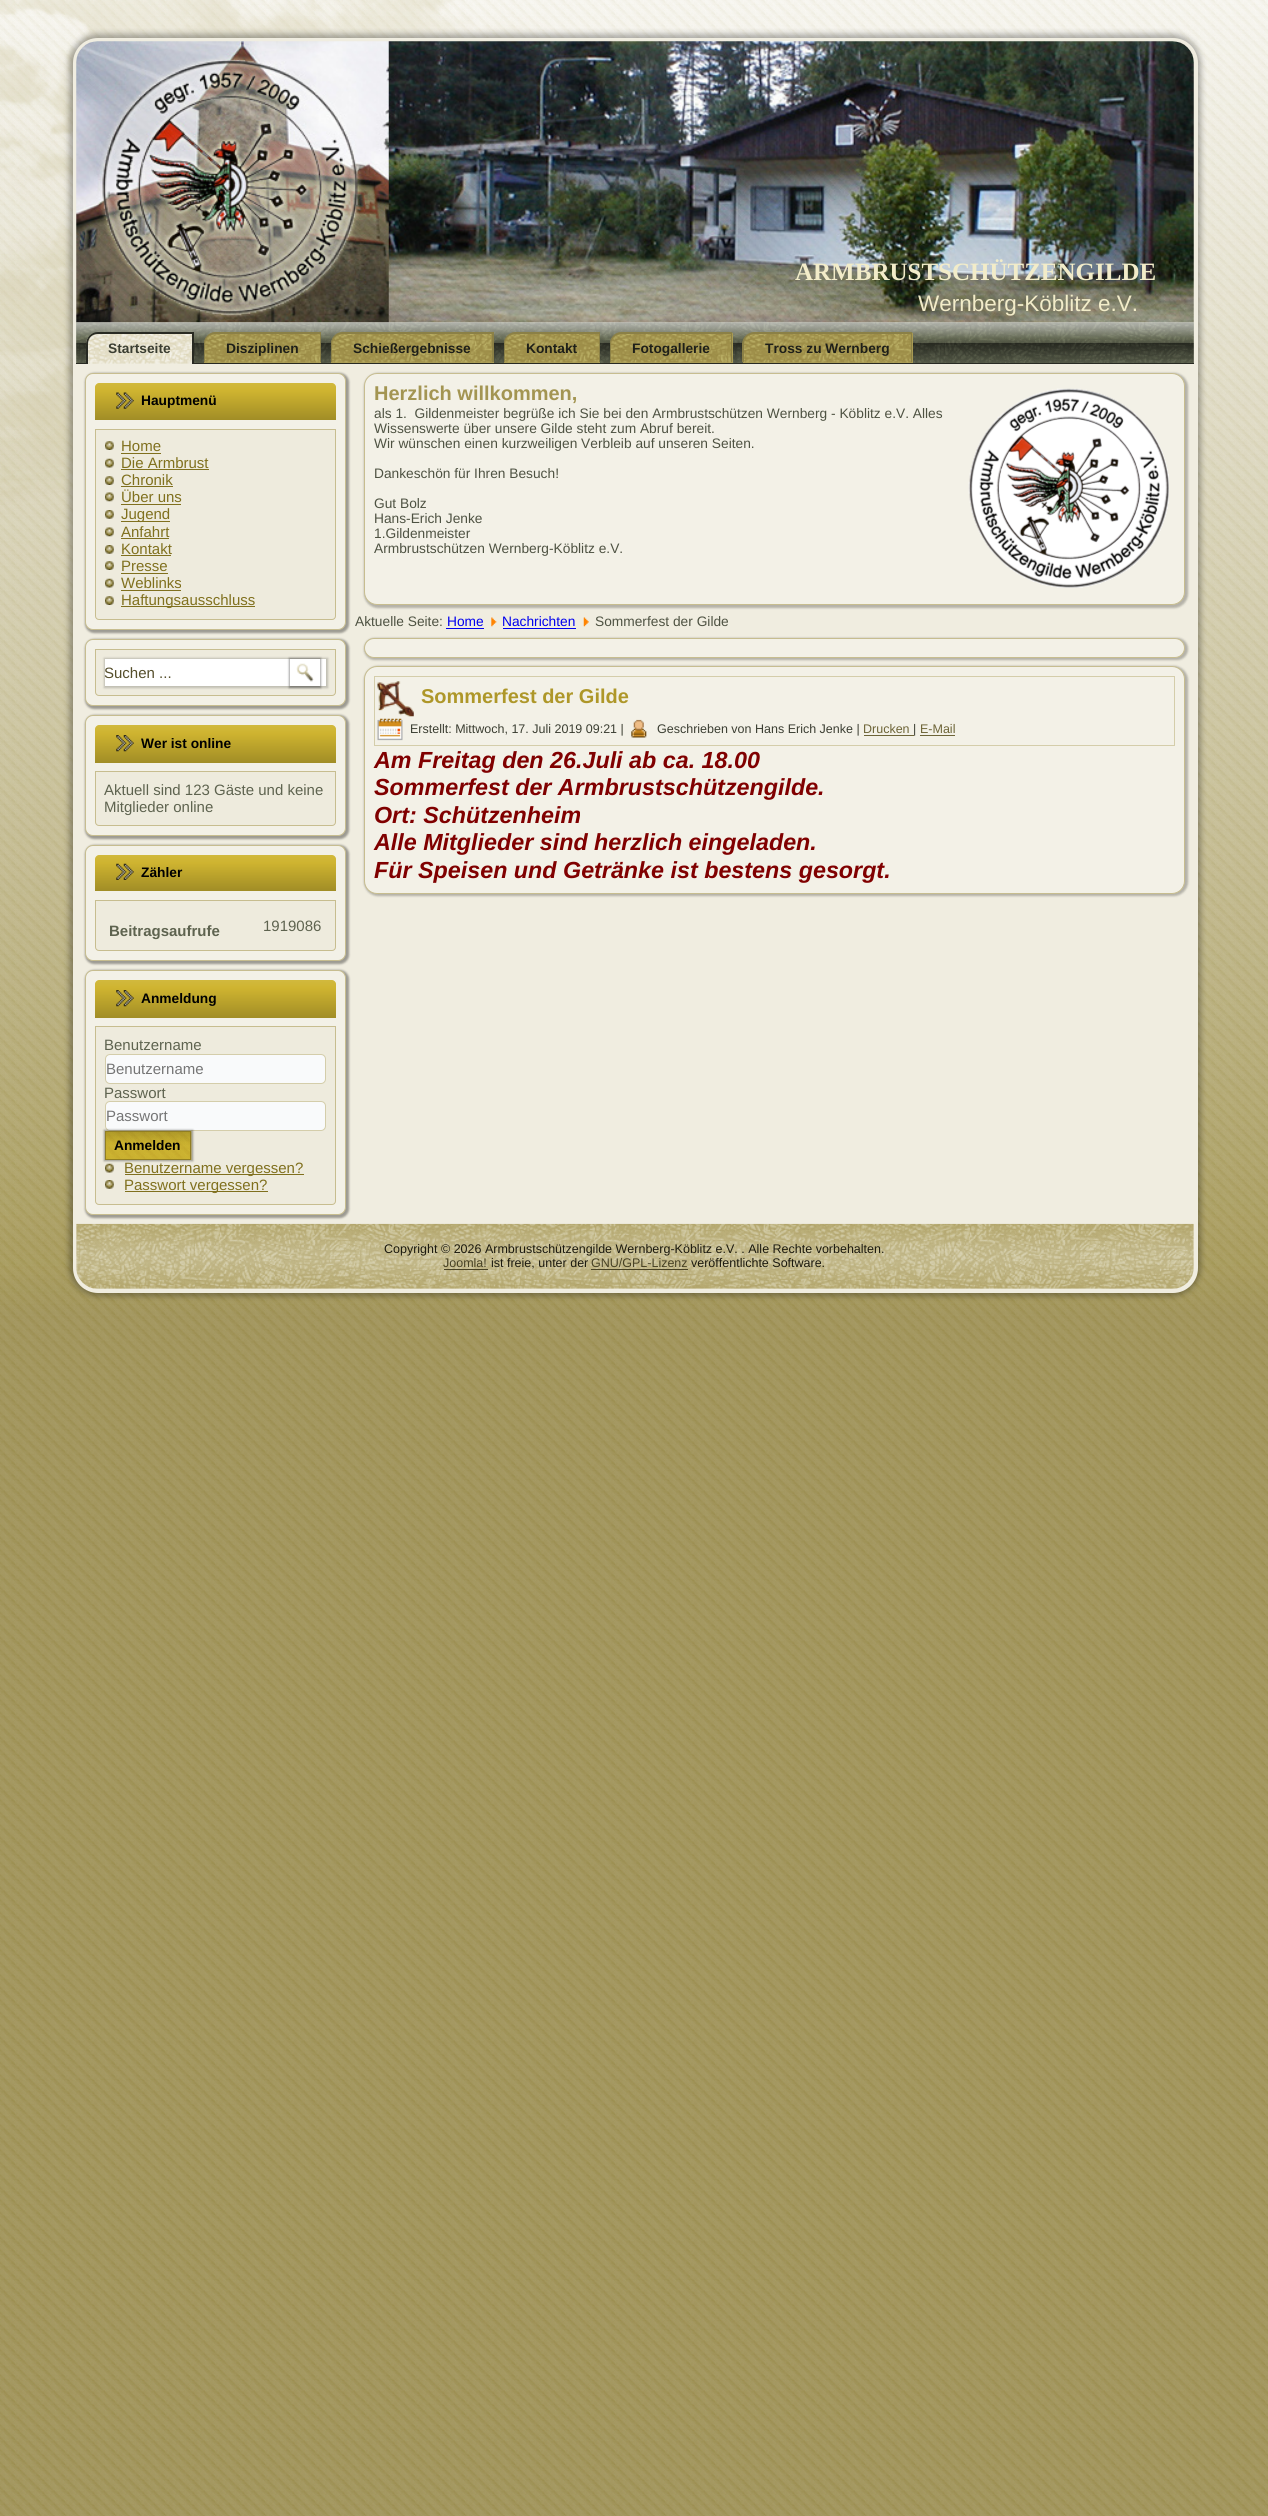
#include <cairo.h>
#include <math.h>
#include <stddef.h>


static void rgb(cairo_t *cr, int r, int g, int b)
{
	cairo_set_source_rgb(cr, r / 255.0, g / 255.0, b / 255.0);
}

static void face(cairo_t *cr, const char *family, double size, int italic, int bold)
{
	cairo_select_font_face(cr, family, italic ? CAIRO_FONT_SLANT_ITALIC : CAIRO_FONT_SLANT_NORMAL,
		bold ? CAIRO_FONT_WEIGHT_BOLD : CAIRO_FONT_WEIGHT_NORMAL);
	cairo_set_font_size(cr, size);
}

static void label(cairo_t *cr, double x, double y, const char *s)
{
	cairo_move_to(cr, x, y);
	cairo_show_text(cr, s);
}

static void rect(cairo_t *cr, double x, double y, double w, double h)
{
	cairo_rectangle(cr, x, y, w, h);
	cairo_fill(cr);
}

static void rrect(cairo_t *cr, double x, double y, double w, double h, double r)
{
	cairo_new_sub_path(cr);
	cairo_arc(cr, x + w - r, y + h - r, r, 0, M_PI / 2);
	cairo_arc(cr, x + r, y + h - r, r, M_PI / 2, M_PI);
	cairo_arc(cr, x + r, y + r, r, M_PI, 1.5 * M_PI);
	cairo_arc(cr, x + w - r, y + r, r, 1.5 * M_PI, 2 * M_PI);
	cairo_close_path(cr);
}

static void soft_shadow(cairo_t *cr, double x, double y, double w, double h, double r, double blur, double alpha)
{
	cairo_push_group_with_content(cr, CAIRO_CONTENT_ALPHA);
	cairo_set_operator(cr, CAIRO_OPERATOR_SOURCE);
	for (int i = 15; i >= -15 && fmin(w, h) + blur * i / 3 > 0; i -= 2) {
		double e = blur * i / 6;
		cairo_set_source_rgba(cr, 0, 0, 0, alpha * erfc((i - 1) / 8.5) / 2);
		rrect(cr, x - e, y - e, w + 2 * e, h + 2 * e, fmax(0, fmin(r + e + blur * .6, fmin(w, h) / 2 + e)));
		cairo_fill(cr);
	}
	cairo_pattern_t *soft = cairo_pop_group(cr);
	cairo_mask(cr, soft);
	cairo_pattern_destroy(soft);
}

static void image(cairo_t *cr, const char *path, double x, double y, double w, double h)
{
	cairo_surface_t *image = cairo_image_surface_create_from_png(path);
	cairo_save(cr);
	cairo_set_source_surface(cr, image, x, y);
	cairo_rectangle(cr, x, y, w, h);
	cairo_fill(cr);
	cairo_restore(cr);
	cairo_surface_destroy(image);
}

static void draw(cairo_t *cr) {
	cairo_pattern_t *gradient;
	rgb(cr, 255, 255, 255);
	cairo_paint(cr);
	image(cr, "image0.png", 0, 0, 1268, 2516);
	rgb(cr, 0, 0, 0);
	soft_shadow(cr, 69, 34, 1132, 1262, 29, 3, 0.3);
	rgb(cr, 240, 237, 224);
	rrect(cr, 73, 38, 1125, 1255, 25);
	cairo_fill(cr);
	image(cr, "image1.png", 76, 41, 1118, 282);
	face(cr, "Liberation Serif", 25, 0, 1);
	rgb(cr, 242, 236, 201);
	label(cr, 795, 280, "ARMBRUSTSCHÜTZENGILDE");
	face(cr, "Liberation Sans", 22.5, 0, 0);
	label(cr, 918, 311, "Wernberg-Köblitz e.V.");
	image(cr, "image2.png", 76, 322, 1118, 41);
	rgb(cr, 40, 42, 34);
	rect(cr, 76, 363, 1118, 1);
	rgb(cr, 240, 237, 224);
	cairo_new_path(cr);
	cairo_move_to(cr, 97, 333);
	cairo_line_to(cr, 194, 333);
	cairo_line_to(cr, 194, 364);
	cairo_line_to(cr, 86, 364);
	cairo_line_to(cr, 86, 344);
	cairo_curve_to(cr, 86, 338, 91, 333, 97, 333);
	cairo_close_path(cr);
	cairo_fill(cr);
	image(cr, "image3.png", 86, 332, 106, 32);
	rgb(cr, 40, 42, 34);
	cairo_set_fill_rule(cr, CAIRO_FILL_RULE_EVEN_ODD);
	cairo_new_path(cr);
	cairo_move_to(cr, 98, 332);
	cairo_line_to(cr, 194, 332);
	cairo_line_to(cr, 194, 364);
	cairo_line_to(cr, 86, 364);
	cairo_line_to(cr, 86, 344);
	cairo_curve_to(cr, 86, 338, 91, 332, 98, 332);
	cairo_close_path(cr);
	cairo_move_to(cr, 98, 334);
	cairo_line_to(cr, 192, 334);
	cairo_line_to(cr, 192, 364);
	cairo_line_to(cr, 88, 364);
	cairo_line_to(cr, 88, 344);
	cairo_curve_to(cr, 88, 338, 92, 334, 98, 334);
	cairo_close_path(cr);
	cairo_fill(cr);
	face(cr, "Liberation Sans", 13.75, 0, 1);
	rgb(cr, 59, 62, 50);
	label(cr, 108, 353, "Startseite");
	rgb(cr, 170, 156, 85);
	cairo_new_path(cr);
	cairo_move_to(cr, 215, 333);
	cairo_line_to(cr, 321, 333);
	cairo_line_to(cr, 321, 363);
	cairo_line_to(cr, 204, 363);
	cairo_line_to(cr, 204, 344);
	cairo_curve_to(cr, 204, 338, 209, 333, 215, 333);
	cairo_close_path(cr);
	cairo_fill(cr);
	image(cr, "image4.png", 204, 332, 117, 31);
	rgb(cr, 139, 128, 70);
	cairo_new_path(cr);
	cairo_move_to(cr, 215, 332);
	cairo_line_to(cr, 321, 332);
	cairo_line_to(cr, 321, 362);
	cairo_line_to(cr, 204, 362);
	cairo_line_to(cr, 204, 344);
	cairo_curve_to(cr, 204, 338, 209, 332, 215, 332);
	cairo_close_path(cr);
	cairo_move_to(cr, 215, 334);
	cairo_line_to(cr, 320, 334);
	cairo_line_to(cr, 320, 362);
	cairo_line_to(cr, 205, 362);
	cairo_line_to(cr, 205, 344);
	cairo_curve_to(cr, 205, 338, 209, 334, 215, 334);
	cairo_close_path(cr);
	cairo_fill(cr);
	rgb(cr, 30, 31, 25);
	label(cr, 226, 353, "Disziplinen");
	rgb(cr, 170, 156, 85);
	cairo_new_path(cr);
	cairo_move_to(cr, 342, 333);
	cairo_line_to(cr, 494, 333);
	cairo_line_to(cr, 494, 363);
	cairo_line_to(cr, 331, 363);
	cairo_line_to(cr, 331, 344);
	cairo_curve_to(cr, 331, 338, 336, 333, 342, 333);
	cairo_close_path(cr);
	cairo_fill(cr);
	image(cr, "image5.png", 331, 332, 163, 31);
	rgb(cr, 139, 128, 70);
	cairo_new_path(cr);
	cairo_move_to(cr, 342, 332);
	cairo_line_to(cr, 494, 332);
	cairo_line_to(cr, 494, 362);
	cairo_line_to(cr, 331, 362);
	cairo_line_to(cr, 331, 344);
	cairo_curve_to(cr, 331, 338, 336, 332, 342, 332);
	cairo_close_path(cr);
	cairo_move_to(cr, 342, 334);
	cairo_line_to(cr, 492, 334);
	cairo_line_to(cr, 492, 362);
	cairo_line_to(cr, 332, 362);
	cairo_line_to(cr, 332, 344);
	cairo_curve_to(cr, 332, 338, 337, 334, 342, 334);
	cairo_close_path(cr);
	cairo_fill(cr);
	rgb(cr, 30, 31, 25);
	label(cr, 353, 353, "Schießergebnisse");
	rgb(cr, 170, 156, 85);
	cairo_new_path(cr);
	cairo_move_to(cr, 515, 333);
	cairo_line_to(cr, 600, 333);
	cairo_line_to(cr, 600, 363);
	cairo_line_to(cr, 504, 363);
	cairo_line_to(cr, 504, 344);
	cairo_curve_to(cr, 504, 338, 509, 333, 515, 333);
	cairo_close_path(cr);
	cairo_fill(cr);
	image(cr, "image6.png", 504, 332, 96, 31);
	rgb(cr, 139, 128, 70);
	cairo_new_path(cr);
	cairo_move_to(cr, 515, 332);
	cairo_line_to(cr, 600, 332);
	cairo_line_to(cr, 600, 362);
	cairo_line_to(cr, 504, 362);
	cairo_line_to(cr, 504, 344);
	cairo_curve_to(cr, 504, 338, 509, 332, 515, 332);
	cairo_close_path(cr);
	cairo_move_to(cr, 515, 334);
	cairo_line_to(cr, 599, 334);
	cairo_line_to(cr, 599, 362);
	cairo_line_to(cr, 505, 362);
	cairo_line_to(cr, 505, 344);
	cairo_curve_to(cr, 505, 338, 509, 334, 515, 334);
	cairo_close_path(cr);
	cairo_fill(cr);
	rgb(cr, 30, 31, 25);
	label(cr, 526, 353, "Kontakt");
	rgb(cr, 170, 156, 85);
	cairo_new_path(cr);
	cairo_move_to(cr, 621, 333);
	cairo_line_to(cr, 733, 333);
	cairo_line_to(cr, 733, 363);
	cairo_line_to(cr, 610, 363);
	cairo_line_to(cr, 610, 344);
	cairo_curve_to(cr, 610, 338, 615, 333, 621, 333);
	cairo_close_path(cr);
	cairo_fill(cr);
	image(cr, "image7.png", 610, 332, 123, 31);
	rgb(cr, 139, 128, 70);
	cairo_new_path(cr);
	cairo_move_to(cr, 621, 332);
	cairo_line_to(cr, 732, 332);
	cairo_line_to(cr, 732, 362);
	cairo_line_to(cr, 610, 362);
	cairo_line_to(cr, 610, 344);
	cairo_curve_to(cr, 610, 338, 615, 332, 621, 332);
	cairo_close_path(cr);
	cairo_move_to(cr, 621, 334);
	cairo_line_to(cr, 731, 334);
	cairo_line_to(cr, 731, 362);
	cairo_line_to(cr, 611, 362);
	cairo_line_to(cr, 611, 344);
	cairo_curve_to(cr, 611, 338, 616, 334, 621, 334);
	cairo_close_path(cr);
	cairo_fill(cr);
	rgb(cr, 30, 31, 25);
	label(cr, 632, 353, "Fotogallerie");
	rgb(cr, 170, 156, 85);
	cairo_new_path(cr);
	cairo_move_to(cr, 754, 333);
	cairo_line_to(cr, 913, 333);
	cairo_line_to(cr, 913, 363);
	cairo_line_to(cr, 743, 363);
	cairo_line_to(cr, 743, 344);
	cairo_curve_to(cr, 743, 338, 748, 333, 754, 333);
	cairo_close_path(cr);
	cairo_fill(cr);
	image(cr, "image8.png", 742, 332, 171, 31);
	rgb(cr, 139, 128, 70);
	cairo_new_path(cr);
	cairo_move_to(cr, 754, 332);
	cairo_line_to(cr, 912, 332);
	cairo_line_to(cr, 912, 362);
	cairo_line_to(cr, 742, 362);
	cairo_line_to(cr, 742, 344);
	cairo_curve_to(cr, 742, 338, 748, 332, 754, 332);
	cairo_close_path(cr);
	cairo_move_to(cr, 754, 334);
	cairo_line_to(cr, 911, 334);
	cairo_line_to(cr, 911, 362);
	cairo_line_to(cr, 744, 362);
	cairo_line_to(cr, 744, 344);
	cairo_curve_to(cr, 744, 338, 748, 334, 754, 334);
	cairo_close_path(cr);
	cairo_fill(cr);
	rgb(cr, 30, 31, 25);
	label(cr, 765, 353, "Tross zu Wernberg");
	rgb(cr, 0, 0, 0);
	soft_shadow(cr, 85, 373, 264, 260, 9, 1, 0.35);
	rgb(cr, 243, 241, 231);
	rrect(cr, 85.5, 373.5, 260, 256, 7.5);
	cairo_fill_preserve(cr);
	rgb(cr, 199, 189, 143);
	cairo_set_line_width(cr, 1);
	cairo_stroke(cr);
	gradient = cairo_pattern_create_linear(216, 383, 216, 420);
	cairo_pattern_add_color_stop_rgba(gradient, 0, 0.82, 0.725, 0.239, 1);
	cairo_pattern_add_color_stop_rgba(gradient, 0.21, 0.812, 0.706, 0.188, 1);
	cairo_pattern_add_color_stop_rgba(gradient, 1, 0.631, 0.553, 0.149, 1);
	cairo_set_source(cr, gradient);
	cairo_pattern_destroy(gradient);
	cairo_new_path(cr);
	cairo_move_to(cr, 99, 383);
	cairo_line_to(cr, 332, 383);
	cairo_curve_to(cr, 334, 383, 336, 385, 336, 387);
	cairo_line_to(cr, 336, 420);
	cairo_line_to(cr, 95, 420);
	cairo_line_to(cr, 95, 387);
	cairo_curve_to(cr, 95, 385, 97, 383, 99, 383);
	cairo_close_path(cr);
	cairo_fill(cr);
	image(cr, "image9.png", 116, 392, 18, 17);
	rgb(cr, 0, 0, 0);
	label(cr, 141, 405, "Hauptmenü");
	rgb(cr, 238, 235, 221);
	cairo_new_path(cr);
	cairo_move_to(cr, 95.5, 429.5);
	cairo_line_to(cr, 335.5, 429.5);
	cairo_line_to(cr, 335.5, 616);
	cairo_curve_to(cr, 335.5, 618, 334, 619.5, 332, 619.5);
	cairo_line_to(cr, 99, 619.5);
	cairo_curve_to(cr, 97, 619.5, 95.5, 618, 95.5, 616);
	cairo_close_path(cr);
	cairo_fill_preserve(cr);
	rgb(cr, 199, 189, 143);
	cairo_stroke(cr);
	image(cr, "image10.png", 105, 441, 9, 9);
	face(cr, "Liberation Sans", 15, 0, 0);
	rgb(cr, 128, 112, 30);
	label(cr, 121, 451, "Home");
	rect(cr, 121, 453, 40, 1);
	image(cr, "image11.png", 105, 458, 9, 10);
	label(cr, 121, 468, "Die Armbrust");
	rect(cr, 121, 469, 88, 1);
	image(cr, "image10.png", 105, 476, 9, 9);
	label(cr, 121, 485, "Chronik");
	rect(cr, 121, 486, 52, 1);
	image(cr, "image12.png", 105, 492, 9, 10);
	label(cr, 121, 502, "Über uns");
	rect(cr, 121, 504, 60, 1);
	image(cr, "image13.png", 105, 510, 9, 9);
	rect(cr, 121, 521, 49, 1);
	label(cr, 121, 519, "Jugend");
	image(cr, "image12.png", 105, 527, 9, 10);
	label(cr, 121, 537, "Anfahrt");
	rect(cr, 121, 538, 48, 1);
	image(cr, "image13.png", 105, 545, 9, 9);
	label(cr, 121, 554, "Kontakt");
	rect(cr, 121, 555, 50, 1);
	image(cr, "image10.png", 105, 561, 9, 9);
	label(cr, 121, 571, "Presse");
	rect(cr, 121, 573, 47, 1);
	image(cr, "image11.png", 105, 578, 9, 10);
	label(cr, 121, 588, "Weblinks");
	rect(cr, 121, 590, 60, 1);
	image(cr, "image10.png", 105, 596, 9, 9);
	rect(cr, 121, 606, 134, 1);
	label(cr, 121, 605, "Haftungsausschluss");
	rgb(cr, 0, 0, 0);
	soft_shadow(cr, 85, 639, 264, 70, 9, 1, 0.35);
	rgb(cr, 243, 241, 231);
	rrect(cr, 85.5, 639.5, 260, 66, 7.5);
	cairo_fill_preserve(cr);
	rgb(cr, 199, 189, 143);
	cairo_stroke(cr);
	rgb(cr, 238, 235, 221);
	cairo_new_path(cr);
	cairo_move_to(cr, 95.5, 649.5);
	cairo_line_to(cr, 335.5, 649.5);
	cairo_line_to(cr, 335.5, 692);
	cairo_curve_to(cr, 335.5, 694, 334, 695.5, 332, 695.5);
	cairo_line_to(cr, 99, 695.5);
	cairo_curve_to(cr, 97, 695.5, 95.5, 694, 95.5, 692);
	cairo_close_path(cr);
	cairo_fill_preserve(cr);
	rgb(cr, 199, 189, 143);
	cairo_stroke(cr);
	rgb(cr, 0, 0, 0);
	soft_shadow(cr, 104, 658, 224, 30, 0, 1, 0.2);
	rgb(cr, 255, 255, 255);
	rect(cr, 105, 659, 221, 27);
	rgb(cr, 85, 78, 43);
	label(cr, 104, 678, "Suchen ...");
	cairo_save(cr);
	cairo_new_path(cr);
	cairo_move_to(cr, 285, 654);
	cairo_line_to(cr, 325, 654);
	cairo_line_to(cr, 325, 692);
	cairo_line_to(cr, 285, 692);
	cairo_close_path(cr);
	cairo_move_to(cr, 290, 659);
	cairo_line_to(cr, 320, 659);
	cairo_line_to(cr, 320, 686);
	cairo_line_to(cr, 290, 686);
	cairo_close_path(cr);
	cairo_clip(cr);
	rgb(cr, 0, 0, 0);
	soft_shadow(cr, 289, 658, 32, 30, 0, 1, 0.35);
	cairo_restore(cr);
	image(cr, "image14.png", 296, 663, 18, 19);
	rgb(cr, 0, 0, 0);
	soft_shadow(cr, 85, 715, 264, 124, 9, 1, 0.35);
	rgb(cr, 243, 241, 231);
	rrect(cr, 85.5, 715.5, 260, 120, 7.5);
	cairo_fill_preserve(cr);
	rgb(cr, 199, 189, 143);
	cairo_stroke(cr);
	gradient = cairo_pattern_create_linear(216, 725, 216, 763);
	cairo_pattern_add_color_stop_rgba(gradient, 0, 0.82, 0.725, 0.239, 1);
	cairo_pattern_add_color_stop_rgba(gradient, 0.21, 0.812, 0.706, 0.188, 1);
	cairo_pattern_add_color_stop_rgba(gradient, 1, 0.631, 0.553, 0.149, 1);
	cairo_set_source(cr, gradient);
	cairo_pattern_destroy(gradient);
	cairo_new_path(cr);
	cairo_move_to(cr, 99, 725);
	cairo_line_to(cr, 332, 725);
	cairo_curve_to(cr, 334, 725, 336, 727, 336, 729);
	cairo_line_to(cr, 336, 763);
	cairo_line_to(cr, 95, 763);
	cairo_line_to(cr, 95, 729);
	cairo_curve_to(cr, 95, 727, 97, 725, 99, 725);
	cairo_close_path(cr);
	cairo_fill(cr);
	image(cr, "image15.png", 116, 735, 18, 17);
	face(cr, "Liberation Sans", 13.75, 0, 1);
	rgb(cr, 0, 0, 0);
	label(cr, 141, 748, "Wer ist online");
	rgb(cr, 238, 235, 221);
	cairo_new_path(cr);
	cairo_move_to(cr, 95.5, 771.5);
	cairo_line_to(cr, 335.5, 771.5);
	cairo_line_to(cr, 335.5, 822);
	cairo_curve_to(cr, 335.5, 824, 334, 825.5, 332, 825.5);
	cairo_line_to(cr, 99, 825.5);
	cairo_curve_to(cr, 97, 825.5, 95.5, 824, 95.5, 822);
	cairo_close_path(cr);
	cairo_fill_preserve(cr);
	rgb(cr, 199, 189, 143);
	cairo_stroke(cr);
	face(cr, "Liberation Sans", 15, 0, 0);
	rgb(cr, 94, 99, 79);
	label(cr, 104, 795, "Aktuell sind 123 Gäste und keine");
	label(cr, 104, 812, "Mitglieder online");
	rgb(cr, 0, 0, 0);
	soft_shadow(cr, 85, 845, 264, 119, 9, 1, 0.35);
	rgb(cr, 243, 241, 231);
	rrect(cr, 85.5, 845.5, 260, 115, 7.5);
	cairo_fill_preserve(cr);
	rgb(cr, 199, 189, 143);
	cairo_stroke(cr);
	gradient = cairo_pattern_create_linear(216, 855, 216, 891);
	cairo_pattern_add_color_stop_rgba(gradient, 0, 0.82, 0.725, 0.239, 1);
	cairo_pattern_add_color_stop_rgba(gradient, 0.21, 0.812, 0.706, 0.188, 1);
	cairo_pattern_add_color_stop_rgba(gradient, 1, 0.631, 0.553, 0.149, 1);
	cairo_set_source(cr, gradient);
	cairo_pattern_destroy(gradient);
	cairo_new_path(cr);
	cairo_move_to(cr, 99, 855);
	cairo_line_to(cr, 332, 855);
	cairo_curve_to(cr, 334, 855, 336, 857, 336, 859);
	cairo_line_to(cr, 336, 891);
	cairo_line_to(cr, 95, 891);
	cairo_line_to(cr, 95, 859);
	cairo_curve_to(cr, 95, 857, 97, 855, 99, 855);
	cairo_close_path(cr);
	cairo_fill(cr);
	image(cr, "image16.png", 116, 863, 18, 17);
	face(cr, "Liberation Sans", 13.75, 0, 1);
	rgb(cr, 0, 0, 0);
	label(cr, 141, 877, "Zähler");
	rgb(cr, 238, 235, 221);
	cairo_new_path(cr);
	cairo_move_to(cr, 95.5, 900.5);
	cairo_line_to(cr, 335.5, 900.5);
	cairo_line_to(cr, 335.5, 947);
	cairo_curve_to(cr, 335.5, 949, 334, 950.5, 332, 950.5);
	cairo_line_to(cr, 99, 950.5);
	cairo_curve_to(cr, 97, 950.5, 95.5, 949, 95.5, 947);
	cairo_close_path(cr);
	cairo_fill_preserve(cr);
	rgb(cr, 199, 189, 143);
	cairo_stroke(cr);
	face(cr, "Liberation Sans", 15, 0, 1);
	rgb(cr, 94, 99, 79);
	label(cr, 109, 936, "Beitragsaufrufe");
	face(cr, "Liberation Sans", 15, 0, 0);
	label(cr, 263, 931, "1919086");
	rgb(cr, 0, 0, 0);
	soft_shadow(cr, 85, 970, 264, 248, 9, 1, 0.35);
	rgb(cr, 243, 241, 231);
	rrect(cr, 85.5, 970.5, 260, 244, 7.5);
	cairo_fill_preserve(cr);
	rgb(cr, 199, 189, 143);
	cairo_stroke(cr);
	gradient = cairo_pattern_create_linear(216, 980, 216, 1018);
	cairo_pattern_add_color_stop_rgba(gradient, 0, 0.82, 0.725, 0.239, 1);
	cairo_pattern_add_color_stop_rgba(gradient, 0.21, 0.812, 0.706, 0.188, 1);
	cairo_pattern_add_color_stop_rgba(gradient, 1, 0.631, 0.553, 0.149, 1);
	cairo_set_source(cr, gradient);
	cairo_pattern_destroy(gradient);
	cairo_new_path(cr);
	cairo_move_to(cr, 99, 980);
	cairo_line_to(cr, 332, 980);
	cairo_curve_to(cr, 334, 980, 336, 982, 336, 984);
	cairo_line_to(cr, 336, 1018);
	cairo_line_to(cr, 95, 1018);
	cairo_line_to(cr, 95, 984);
	cairo_curve_to(cr, 95, 982, 97, 980, 99, 980);
	cairo_close_path(cr);
	cairo_fill(cr);
	image(cr, "image15.png", 116, 990, 18, 17);
	face(cr, "Liberation Sans", 13.75, 0, 1);
	rgb(cr, 0, 0, 0);
	label(cr, 141, 1003, "Anmeldung");
	rgb(cr, 238, 235, 221);
	cairo_new_path(cr);
	cairo_move_to(cr, 95.5, 1026.5);
	cairo_line_to(cr, 335.5, 1026.5);
	cairo_line_to(cr, 335.5, 1201);
	cairo_curve_to(cr, 335.5, 1203, 334, 1204.5, 332, 1204.5);
	cairo_line_to(cr, 99, 1204.5);
	cairo_curve_to(cr, 97, 1204.5, 95.5, 1203, 95.5, 1201);
	cairo_close_path(cr);
	cairo_fill_preserve(cr);
	rgb(cr, 199, 189, 143);
	cairo_stroke(cr);
	face(cr, "Liberation Sans", 15, 0, 0);
	rgb(cr, 94, 99, 79);
	label(cr, 104, 1050, "Benutzername");
	rgb(cr, 249, 250, 251);
	rrect(cr, 105.5, 1054.5, 220, 29, 4.5);
	cairo_fill_preserve(cr);
	rgb(cr, 212, 205, 170);
	cairo_stroke(cr);
	rgb(cr, 117, 117, 117);
	label(cr, 106, 1074, "Benutzername");
	rgb(cr, 94, 99, 79);
	label(cr, 104, 1098, "Passwort");
	rgb(cr, 249, 250, 251);
	rrect(cr, 105.5, 1101.5, 220, 29, 4.5);
	cairo_fill_preserve(cr);
	rgb(cr, 212, 205, 170);
	cairo_stroke(cr);
	rgb(cr, 117, 117, 117);
	label(cr, 106, 1121, "Passwort");
	rgb(cr, 0, 0, 0);
	soft_shadow(cr, 104, 1130, 89, 31, 0, 1, 0.35);
	image(cr, "image17.png", 106, 1131, 86, 29);
	cairo_rectangle(cr, 105.5, 1131.5, 85, 28);
	rgb(cr, 145, 126, 34);
	cairo_stroke(cr);
	face(cr, "Liberation Sans", 13.75, 0, 1);
	rgb(cr, 0, 0, 0);
	label(cr, 114, 1150, "Anmelden");
	image(cr, "image18.png", 105, 1163, 9, 10);
	rgb(cr, 128, 112, 30);
	rect(cr, 125, 1174, 179, 1);
	face(cr, "Liberation Sans", 15, 0, 0);
	label(cr, 124, 1173, "Benutzername vergessen?");
	image(cr, "image13.png", 105, 1180, 9, 9);
	rect(cr, 125, 1191, 143, 1);
	label(cr, 124, 1190, "Passwort vergessen?");
	rgb(cr, 0, 0, 0);
	soft_shadow(cr, 364, 373, 824, 235, 14, 1, 0.25);
	rgb(cr, 243, 241, 231);
	rrect(cr, 364.5, 373.5, 820, 231, 12.5);
	cairo_fill_preserve(cr);
	rgb(cr, 199, 189, 143);
	cairo_stroke(cr);
	face(cr, "Liberation Sans", 20, 0, 1);
	rgb(cr, 163, 149, 82);
	label(cr, 374, 400, "Herzlich willkommen,");
	image(cr, "image19.png", 968, 388, 201, 200);
	face(cr, "Liberation Sans", 13.75, 0, 0);
	rgb(cr, 78, 82, 66);
	label(cr, 374, 418, "als 1.  Gildenmeister begrüße ich Sie bei den Armbrustschützen Wernberg - Köblitz e.V. Alles");
	label(cr, 374, 433, "Wissenswerte über unsere Gilde steht zum Abruf bereit.");
	label(cr, 374, 448, "Wir wünschen einen kurzweiligen Verbleib auf unseren Seiten.");
	label(cr, 374, 478, "Dankeschön für Ihren Besuch!");
	label(cr, 374, 508, "Gut Bolz");
	label(cr, 374, 523, "Hans-Erich Jenke");
	label(cr, 374, 538, "1.Gildenmeister");
	label(cr, 374, 553, "Armbrustschützen Wernberg-Köblitz e.V.");
	label(cr, 355, 626, "Aktuelle Seite:");
	rgb(cr, 0, 0, 238);
	label(cr, 447, 626, "Home");
	rect(cr, 446, 628, 38, 1);
	image(cr, "image20.png", 491, 617, 6, 10);
	label(cr, 502, 626, "Nachrichten");
	rect(cr, 503, 628, 73, 1);
	image(cr, "image21.png", 583, 617, 6, 10);
	rgb(cr, 78, 82, 66);
	label(cr, 595, 626, "Sommerfest der Gilde");
	rgb(cr, 0, 0, 0);
	soft_shadow(cr, 364, 638, 824, 22, 11, 1, 0.25);
	rgb(cr, 243, 241, 231);
	rrect(cr, 364.5, 638.5, 820, 19, 9.5);
	cairo_fill_preserve(cr);
	rgb(cr, 199, 189, 143);
	cairo_stroke(cr);
	rgb(cr, 0, 0, 0);
	soft_shadow(cr, 364, 666, 824, 230, 14, 1, 0.25);
	rgb(cr, 243, 241, 231);
	rrect(cr, 364.5, 666.5, 820, 227, 12.5);
	cairo_fill_preserve(cr);
	rgb(cr, 199, 189, 143);
	cairo_stroke(cr);
	cairo_rectangle(cr, 374.5, 676.5, 800, 69);
	rgb(cr, 212, 205, 170);
	cairo_stroke(cr);
	image(cr, "image22.png", 377, 681, 37, 36);
	face(cr, "Liberation Sans", 20, 0, 1);
	rgb(cr, 174, 151, 41);
	label(cr, 421, 703, "Sommerfest der Gilde");
	image(cr, "image23.png", 377, 718, 26, 23);
	face(cr, "Liberation Sans", 12.5, 0, 0);
	rgb(cr, 59, 62, 50);
	label(cr, 410, 733, "Erstellt: Mittwoch, 17. Juli 2019 09:21 |");
	image(cr, "image24.png", 631, 719, 16, 19);
	label(cr, 657, 733, "Geschrieben von Hans Erich Jenke |");
	rgb(cr, 109, 100, 55);
	label(cr, 863, 733, "Drucken");
	rect(cr, 864, 735, 50, 1);
	rgb(cr, 59, 62, 50);
	label(cr, 913, 733, "|");
	rgb(cr, 109, 100, 55);
	label(cr, 920, 733, "E-Mail");
	rect(cr, 920, 735, 35, 1);
	face(cr, "Liberation Sans", 23.3, 1, 1);
	rgb(cr, 128, 0, 0);
	label(cr, 374, 768, "Am Freitag den 26.Juli ab ca. 18.00");
	label(cr, 374, 795, "Sommerfest der Armbrustschützengilde.");
	label(cr, 374, 823, "Ort: Schützenheim");
	label(cr, 374, 850, "Alle Mitglieder sind herzlich eingeladen.");
	label(cr, 374, 878, "Für Speisen und Getränke ist bestens gesorgt.");
	image(cr, "image25.png", 76, 1223, 1118, 66);
	face(cr, "Liberation Sans", 12.5, 0, 0);
	rgb(cr, 27, 25, 14);
	label(cr, 384, 1253, "Copyright © 2026 Armbrustschützengilde Wernberg-Köblitz e.V. . Alle Rechte vorbehalten.");
	rgb(cr, 71, 65, 36);
	label(cr, 443, 1267, "Joomla!");
	rect(cr, 444, 1269, 44, 1);
	rgb(cr, 27, 25, 14);
	label(cr, 491, 1267, "ist freie, unter der");
	rgb(cr, 71, 65, 36);
	label(cr, 591, 1267, "GNU/GPL-Lizenz");
	rect(cr, 591, 1269, 97, 1);
	rgb(cr, 27, 25, 14);
	label(cr, 691, 1267, "veröffentlichte Software.");
}

int main(void) {
	cairo_surface_t *surface = cairo_image_surface_create(CAIRO_FORMAT_RGB24, 1268, 2516);
	cairo_t *cr = cairo_create(surface);
	cairo_font_options_t *options = cairo_font_options_create();
	cairo_font_options_set_hint_metrics(options, CAIRO_HINT_METRICS_OFF);
	cairo_font_options_set_hint_style(options, CAIRO_HINT_STYLE_NONE);
	cairo_set_font_options(cr, options);
	cairo_set_miter_limit(cr, 4);
	draw(cr);
	cairo_surface_write_to_png(surface, "render.png");
	cairo_font_options_destroy(options);
	cairo_destroy(cr);
	cairo_surface_destroy(surface);
	return 0;
}
